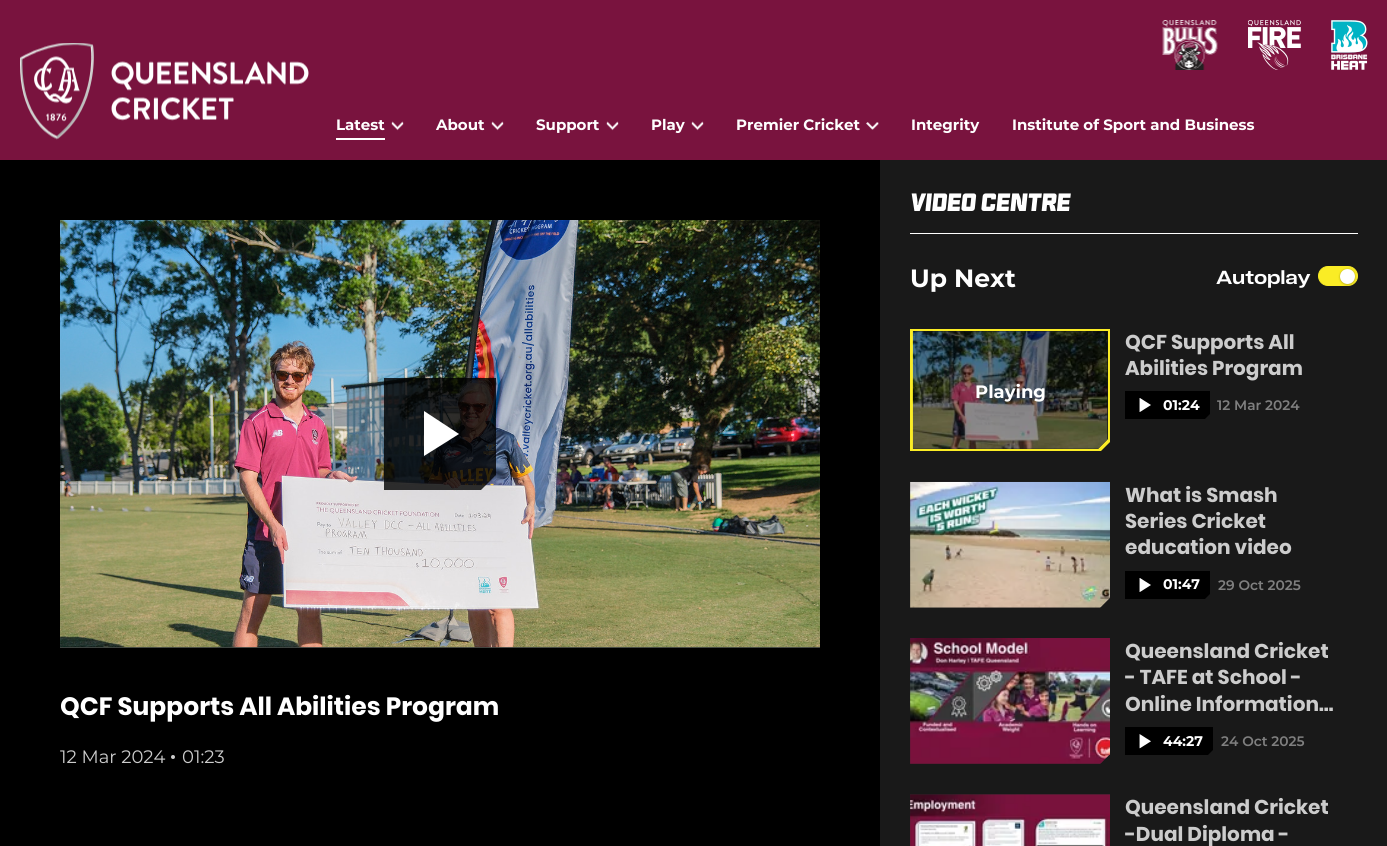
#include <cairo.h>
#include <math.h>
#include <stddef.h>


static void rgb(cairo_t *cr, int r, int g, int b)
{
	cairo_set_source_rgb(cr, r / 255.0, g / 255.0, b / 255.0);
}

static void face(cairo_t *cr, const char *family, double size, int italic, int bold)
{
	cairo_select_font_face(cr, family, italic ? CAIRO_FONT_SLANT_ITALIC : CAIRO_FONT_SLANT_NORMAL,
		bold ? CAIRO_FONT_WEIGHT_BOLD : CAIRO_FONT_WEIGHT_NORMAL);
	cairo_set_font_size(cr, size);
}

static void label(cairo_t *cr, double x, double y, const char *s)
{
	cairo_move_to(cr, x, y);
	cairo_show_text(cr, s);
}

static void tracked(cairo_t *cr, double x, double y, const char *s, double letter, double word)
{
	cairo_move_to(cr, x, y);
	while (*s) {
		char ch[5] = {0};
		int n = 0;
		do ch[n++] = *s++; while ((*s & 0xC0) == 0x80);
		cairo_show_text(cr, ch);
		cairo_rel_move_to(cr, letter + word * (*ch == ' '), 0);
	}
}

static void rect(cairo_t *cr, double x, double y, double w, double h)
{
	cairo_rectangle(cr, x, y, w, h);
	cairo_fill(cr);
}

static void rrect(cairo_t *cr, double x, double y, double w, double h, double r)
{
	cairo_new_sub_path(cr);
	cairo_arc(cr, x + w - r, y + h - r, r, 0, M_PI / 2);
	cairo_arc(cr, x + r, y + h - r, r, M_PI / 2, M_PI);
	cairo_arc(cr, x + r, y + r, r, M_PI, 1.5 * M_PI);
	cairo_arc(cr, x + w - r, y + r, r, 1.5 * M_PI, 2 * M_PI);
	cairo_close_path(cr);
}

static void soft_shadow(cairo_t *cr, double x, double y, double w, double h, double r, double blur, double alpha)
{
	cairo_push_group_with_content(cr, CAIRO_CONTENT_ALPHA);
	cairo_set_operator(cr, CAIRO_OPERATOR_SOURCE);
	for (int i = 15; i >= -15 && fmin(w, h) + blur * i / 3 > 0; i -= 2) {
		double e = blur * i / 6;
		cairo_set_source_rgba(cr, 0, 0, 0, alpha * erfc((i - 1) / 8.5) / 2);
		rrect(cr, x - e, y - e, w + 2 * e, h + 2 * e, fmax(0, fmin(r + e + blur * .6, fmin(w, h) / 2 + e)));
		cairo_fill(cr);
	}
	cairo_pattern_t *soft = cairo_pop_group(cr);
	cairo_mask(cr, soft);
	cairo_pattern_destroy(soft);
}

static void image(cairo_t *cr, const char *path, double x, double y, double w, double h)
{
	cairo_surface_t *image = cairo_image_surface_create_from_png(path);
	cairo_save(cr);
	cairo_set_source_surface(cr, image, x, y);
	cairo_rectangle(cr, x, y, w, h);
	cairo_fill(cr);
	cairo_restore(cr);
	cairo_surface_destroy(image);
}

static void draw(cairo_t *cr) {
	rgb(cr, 0, 0, 0);
	cairo_paint(cr);
	rgb(cr, 121, 19, 62);
	rect(cr, 0, 0, 1387, 160);
	image(cr, "image0.png", 20, 43, 289, 97);
	image(cr, "image1.png", 1162, 20, 56, 50);
	image(cr, "image2.png", 1248, 20, 53, 50);
	image(cr, "image3.png", 1331, 20, 37, 50);
	face(cr, "Montserrat", 15, 0, 1);
	rgb(cr, 255, 255, 255);
	label(cr, 336, 130, "Latest");
	rect(cr, 336, 138, 49, 2);
	image(cr, "image4.png", 391, 121, 13, 10);
	label(cr, 436, 130, "About");
	image(cr, "image4.png", 491, 121, 13, 10);
	label(cr, 536, 130, "Support");
	image(cr, "image4.png", 606, 121, 13, 10);
	label(cr, 651, 130, "Play");
	image(cr, "image4.png", 691, 121, 13, 10);
	label(cr, 736, 130, "Premier Cricket");
	image(cr, "image5.png", 866, 122, 13, 8);
	label(cr, 911, 130, "Integrity");
	label(cr, 1012, 130, "Institute of Sport and Business");
	rgb(cr, 21, 27, 23);
	rect(cr, 60, 647, 760, 1);
	image(cr, "image6.png", 60, 220, 760, 428);
	cairo_set_source_rgba(cr, 0, 0, 0, 0.8);
	cairo_new_path(cr);
	cairo_move_to(cr, 384, 378);
	cairo_line_to(cr, 496, 378);
	cairo_line_to(cr, 496, 475);
	cairo_line_to(cr, 481, 490);
	cairo_line_to(cr, 384, 490);
	cairo_close_path(cr);
	cairo_fill(cr);
	rgb(cr, 255, 255, 255);
	cairo_new_path(cr);
	cairo_move_to(cr, 424, 456);
	cairo_line_to(cr, 424, 411);
	cairo_line_to(cr, 459, 434);
	cairo_close_path(cr);
	cairo_fill(cr);
	face(cr, "Poppins", 25, 0, 1);
	label(cr, 60, 715, "QCF Supports All Abilities Program");
	face(cr, "Montserrat", 18, 0, 0);
	rgb(cr, 204, 204, 204);
	label(cr, 60, 763, "12 Mar 2024");
	cairo_new_path(cr);
	cairo_arc(cr, 173, 757, 2, 0, 2 * M_PI);
	cairo_fill(cr);
	label(cr, 182, 763, "01:23");
	rgb(cr, 25, 25, 25);
	rect(cr, 880, 160, 507, 686);
	rgb(cr, 255, 255, 255);
	rect(cr, 910, 233, 448, 1);
	face(cr, "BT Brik", 25.75, 0, 0);
	label(cr, 910, 211, "Video Centre");
	face(cr, "Montserrat", 25, 0, 1);
	label(cr, 910, 287, "Up Next");
	rgb(cr, 250, 236, 37);
	rrect(cr, 1318.5, 266.5, 39, 19, 9.5);
	cairo_fill_preserve(cr);
	cairo_set_line_width(cr, 1);
	cairo_stroke(cr);
	rgb(cr, 0, 0, 0);
	soft_shadow(cr, 1340, 269, 15, 15, 7.5, 1, 0.2);
	soft_shadow(cr, 1340, 270, 15, 15, 7.5, 1, 0.15);
	rgb(cr, 255, 255, 255);
	cairo_arc(cr, 1347.5, 276.5, 7.5, 0, 2 * M_PI);
	cairo_fill(cr);
	face(cr, "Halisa", 20, 0, 1);
	tracked(cr, 1216, 284, "Autoplay", -0.25, 0);
	rgb(cr, 250, 236, 37);
	cairo_new_path(cr);
	cairo_move_to(cr, 910, 451);
	cairo_line_to(cr, 910, 329);
	cairo_line_to(cr, 1110, 329);
	cairo_line_to(cr, 1110, 442);
	cairo_line_to(cr, 1101, 451);
	cairo_close_path(cr);
	cairo_fill(cr);
	rgb(cr, 38, 38, 38);
	cairo_new_path(cr);
	cairo_move_to(cr, 1098, 449);
	cairo_line_to(cr, 913, 449);
	cairo_line_to(cr, 913, 331);
	cairo_line_to(cr, 1108, 331);
	cairo_line_to(cr, 1108, 439);
	cairo_close_path(cr);
	cairo_fill(cr);
	image(cr, "image7.png", 912, 331, 196, 118);
	cairo_set_source_rgba(cr, 0, 0, 0, 0.4);
	cairo_new_path(cr);
	cairo_move_to(cr, 1098, 449);
	cairo_line_to(cr, 913, 449);
	cairo_line_to(cr, 913, 331);
	cairo_line_to(cr, 1108, 331);
	cairo_line_to(cr, 1108, 439);
	cairo_close_path(cr);
	cairo_fill(cr);
	face(cr, "Montserrat", 18, 0, 1);
	rgb(cr, 255, 255, 255);
	label(cr, 975, 398, "Playing");
	face(cr, "Poppins", 20, 0, 1);
	rgb(cr, 204, 204, 204);
	label(cr, 1125, 349, "QCF Supports All");
	label(cr, 1125, 375, "Abilities Program");
	rgb(cr, 0, 0, 0);
	cairo_new_path(cr);
	cairo_move_to(cr, 1125, 391);
	cairo_line_to(cr, 1210, 391);
	cairo_line_to(cr, 1210, 414);
	cairo_line_to(cr, 1205, 419);
	cairo_line_to(cr, 1125, 419);
	cairo_close_path(cr);
	cairo_fill(cr);
	image(cr, "image8.png", 1139, 398, 12, 14);
	face(cr, "Montserrat", 14, 0, 1);
	rgb(cr, 255, 255, 255);
	label(cr, 1163, 410, "01:24");
	face(cr, "Montserrat SemiBold", 13.75, 0, 0);
	rgb(cr, 127, 127, 127);
	label(cr, 1217, 410, "12 Mar 2024");
	rgb(cr, 38, 38, 38);
	cairo_new_path(cr);
	cairo_move_to(cr, 910, 482);
	cairo_line_to(cr, 910, 608);
	cairo_line_to(cr, 1100, 608);
	cairo_line_to(cr, 1110, 598);
	cairo_line_to(cr, 1110, 482);
	cairo_close_path(cr);
	cairo_fill(cr);
	image(cr, "image9.png", 910, 481, 200, 127);
	face(cr, "Poppins", 20, 0, 1);
	rgb(cr, 204, 204, 204);
	label(cr, 1125, 502, "What is Smash");
	label(cr, 1125, 528, "Series Cricket");
	label(cr, 1125, 554, "education video");
	rgb(cr, 0, 0, 0);
	cairo_new_path(cr);
	cairo_move_to(cr, 1125, 571);
	cairo_line_to(cr, 1210, 571);
	cairo_line_to(cr, 1210, 594);
	cairo_line_to(cr, 1205, 599);
	cairo_line_to(cr, 1125, 599);
	cairo_close_path(cr);
	cairo_fill(cr);
	image(cr, "image8.png", 1139, 578, 12, 14);
	face(cr, "Montserrat", 14, 0, 1);
	rgb(cr, 255, 255, 255);
	label(cr, 1163, 589, "01:47");
	face(cr, "Montserrat SemiBold", 13.75, 0, 0);
	rgb(cr, 127, 127, 127);
	label(cr, 1218, 590, "29 Oct 2025");
	rgb(cr, 38, 38, 38);
	cairo_new_path(cr);
	cairo_move_to(cr, 910, 638);
	cairo_line_to(cr, 910, 764);
	cairo_line_to(cr, 1100, 764);
	cairo_line_to(cr, 1110, 754);
	cairo_line_to(cr, 1110, 638);
	cairo_close_path(cr);
	cairo_fill(cr);
	image(cr, "image10.png", 910, 638, 200, 126);
	face(cr, "Poppins", 20, 0, 1);
	rgb(cr, 204, 204, 204);
	label(cr, 1125, 658, "Queensland Cricket");
	label(cr, 1125, 684, "- TAFE at School -");
	label(cr, 1125, 711, "Online Information…");
	rgb(cr, 0, 0, 0);
	cairo_new_path(cr);
	cairo_move_to(cr, 1125, 727);
	cairo_line_to(cr, 1125, 755);
	cairo_line_to(cr, 1208, 755);
	cairo_line_to(cr, 1213, 750);
	cairo_line_to(cr, 1213, 727);
	cairo_close_path(cr);
	cairo_fill(cr);
	image(cr, "image11.png", 1139, 734, 12, 15);
	face(cr, "Montserrat", 14, 0, 1);
	rgb(cr, 255, 255, 255);
	label(cr, 1163, 746, "44:27");
	face(cr, "Montserrat SemiBold", 13.75, 0, 0);
	rgb(cr, 127, 127, 127);
	label(cr, 1221, 746, "24 Oct 2025");
	rgb(cr, 38, 38, 38);
	cairo_new_path(cr);
	cairo_move_to(cr, 910, 794);
	cairo_line_to(cr, 910, 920);
	cairo_line_to(cr, 1101, 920);
	cairo_line_to(cr, 1110, 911);
	cairo_line_to(cr, 1110, 794);
	cairo_close_path(cr);
	cairo_fill(cr);
	image(cr, "image12.png", 910, 794, 200, 52);
	face(cr, "Poppins", 20, 0, 1);
	rgb(cr, 204, 204, 204);
	label(cr, 1125, 814, "Queensland Cricket");
	label(cr, 1125, 841, "-Dual Diploma -");
}

int main(void) {
	cairo_surface_t *surface = cairo_image_surface_create(CAIRO_FORMAT_RGB24, 1387, 846);
	cairo_t *cr = cairo_create(surface);
	cairo_font_options_t *options = cairo_font_options_create();
	cairo_font_options_set_hint_metrics(options, CAIRO_HINT_METRICS_OFF);
	cairo_font_options_set_hint_style(options, CAIRO_HINT_STYLE_NONE);
	cairo_set_font_options(cr, options);
	cairo_set_miter_limit(cr, 4);
	draw(cr);
	cairo_surface_write_to_png(surface, "render.png");
	cairo_font_options_destroy(options);
	cairo_destroy(cr);
	cairo_surface_destroy(surface);
	return 0;
}
